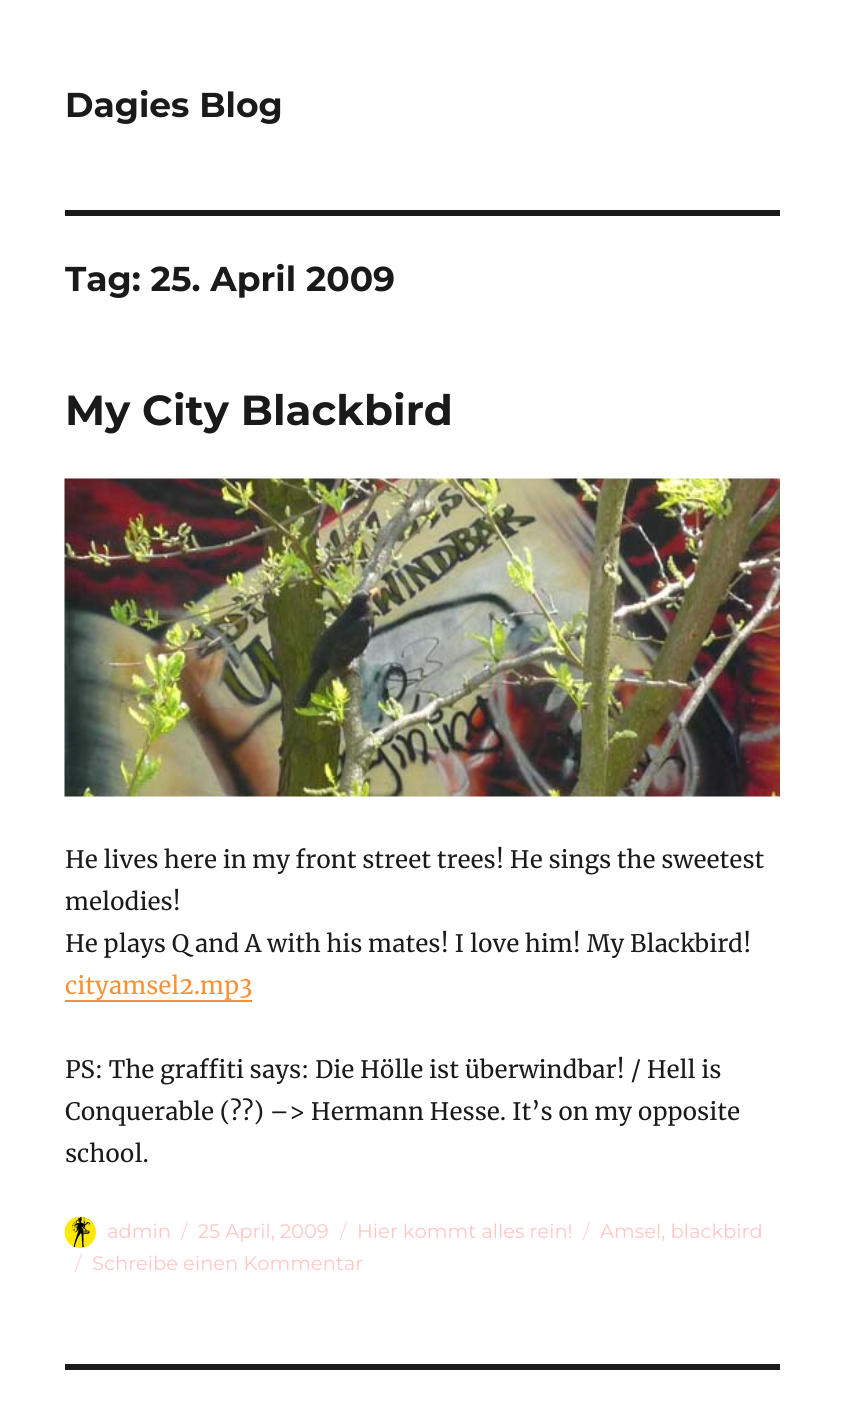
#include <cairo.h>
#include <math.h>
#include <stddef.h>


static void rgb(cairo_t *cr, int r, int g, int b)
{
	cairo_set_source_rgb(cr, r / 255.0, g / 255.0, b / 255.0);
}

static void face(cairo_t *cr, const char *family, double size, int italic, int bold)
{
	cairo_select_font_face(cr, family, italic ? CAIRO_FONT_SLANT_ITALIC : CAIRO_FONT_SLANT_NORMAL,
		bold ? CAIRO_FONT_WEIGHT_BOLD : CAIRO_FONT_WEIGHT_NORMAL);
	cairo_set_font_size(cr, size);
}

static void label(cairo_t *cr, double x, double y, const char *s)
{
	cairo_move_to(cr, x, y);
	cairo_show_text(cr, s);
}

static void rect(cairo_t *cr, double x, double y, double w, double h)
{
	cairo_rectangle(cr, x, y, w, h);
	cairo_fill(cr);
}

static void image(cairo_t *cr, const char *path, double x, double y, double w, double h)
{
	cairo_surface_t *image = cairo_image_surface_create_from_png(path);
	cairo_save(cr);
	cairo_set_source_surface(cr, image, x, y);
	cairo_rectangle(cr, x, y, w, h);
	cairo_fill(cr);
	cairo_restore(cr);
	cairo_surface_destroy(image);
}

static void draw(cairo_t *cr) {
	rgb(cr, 255, 255, 255);
	cairo_paint(cr);
	face(cr, "Montserrat Thin", 34.5, 0, 0);
	rgb(cr, 26, 26, 26);
	label(cr, 65, 117, "Dagies Blog");
	rect(cr, 65, 210, 715, 6);
	label(cr, 65, 291, "Tag: 25. April 2009");
	face(cr, "Montserrat Thin", 42, 0, 0);
	label(cr, 65, 425, "My City Blackbird");
	image(cr, "image0.png", 64, 478, 716, 319);
	face(cr, "Merriweather", 24, 0, 0);
	label(cr, 65, 868, "He lives here in my front street trees! He sings the sweetest");
	label(cr, 65, 910, "melodies!");
	label(cr, 65, 952, "He plays Q and A with his mates! I love him! My Blackbird!");
	rgb(cr, 249, 144, 52);
	label(cr, 65, 994, "cityamsel2.mp3");
	rect(cr, 65, 1000, 187, 2);
	rgb(cr, 26, 26, 26);
	label(cr, 65, 1078, "PS: The graffiti says: Die Hölle ist überwindbar! / Hell is");
	label(cr, 65, 1120, "Conquerable (?\077) –> Hermann Hesse. It’s on my opposite");
	label(cr, 65, 1162, "school.");
	image(cr, "image1.png", 64, 1216, 32, 32);
	face(cr, "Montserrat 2 Thin", 19.5, 0, 0);
	rgb(cr, 255, 198, 198);
	label(cr, 107, 1238, "admin");
	rgb(cr, 255, 215, 215);
	label(cr, 181, 1238, "/");
	rgb(cr, 255, 198, 198);
	label(cr, 198, 1238, "25 April, 2009");
	rgb(cr, 255, 215, 215);
	label(cr, 340, 1238, "/");
	rgb(cr, 255, 198, 198);
	label(cr, 357, 1238, "Hier kommt alles rein!");
	rgb(cr, 255, 215, 215);
	label(cr, 583, 1238, "/");
	rgb(cr, 255, 198, 198);
	label(cr, 600, 1238, "Amsel, blackbird");
	rgb(cr, 255, 215, 215);
	label(cr, 75, 1270, "/");
	rgb(cr, 255, 198, 198);
	label(cr, 92, 1270, "Schreibe einen Kommentar");
	rgb(cr, 26, 26, 26);
	rect(cr, 65, 1364, 715, 6);
}

int main(void) {
	cairo_surface_t *surface = cairo_image_surface_create(CAIRO_FORMAT_RGB24, 844, 1401);
	cairo_t *cr = cairo_create(surface);
	cairo_font_options_t *options = cairo_font_options_create();
	cairo_font_options_set_hint_metrics(options, CAIRO_HINT_METRICS_OFF);
	cairo_font_options_set_hint_style(options, CAIRO_HINT_STYLE_NONE);
	cairo_set_font_options(cr, options);
	cairo_set_miter_limit(cr, 4);
	draw(cr);
	cairo_surface_write_to_png(surface, "render.png");
	cairo_font_options_destroy(options);
	cairo_destroy(cr);
	cairo_surface_destroy(surface);
	return 0;
}
